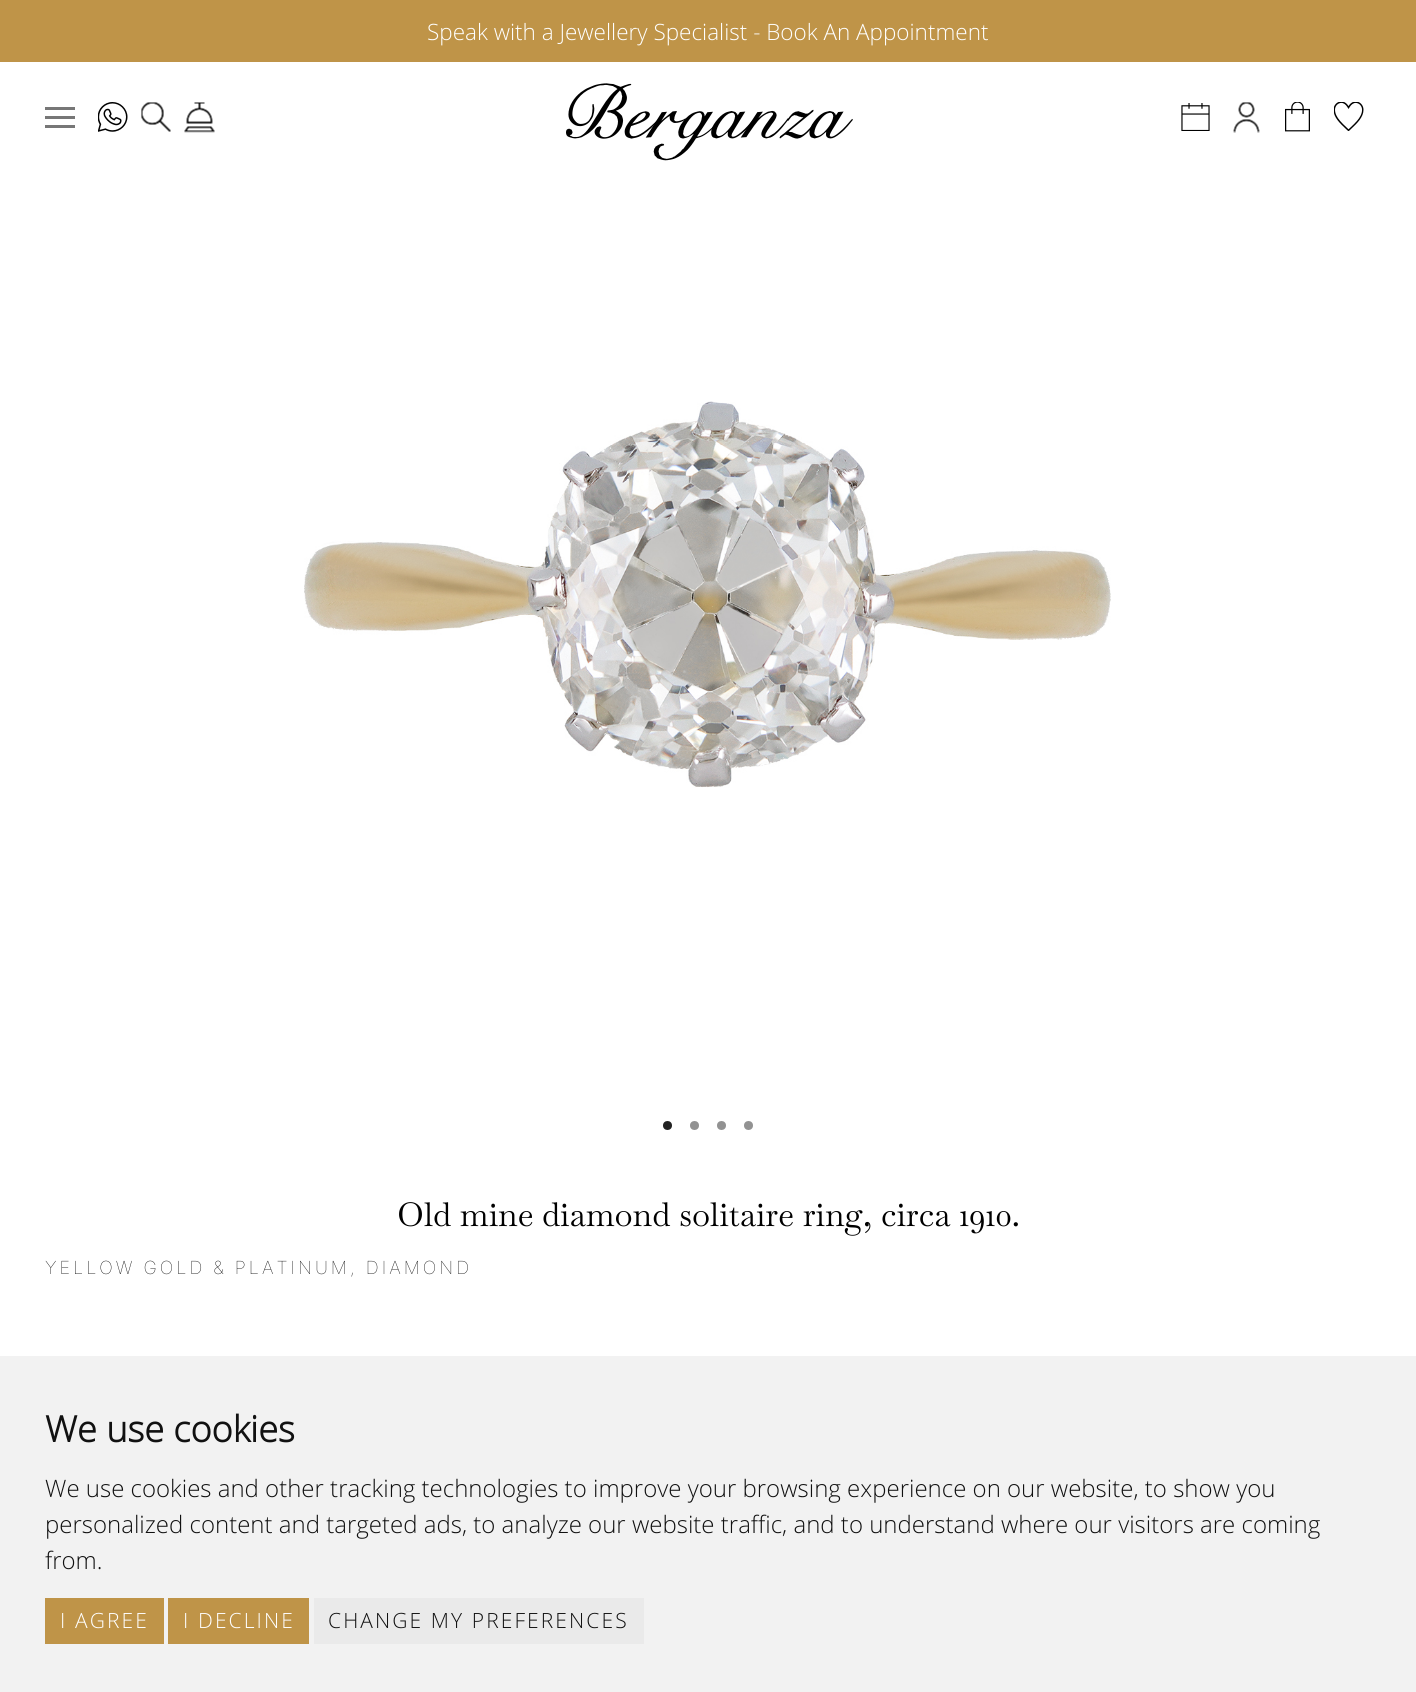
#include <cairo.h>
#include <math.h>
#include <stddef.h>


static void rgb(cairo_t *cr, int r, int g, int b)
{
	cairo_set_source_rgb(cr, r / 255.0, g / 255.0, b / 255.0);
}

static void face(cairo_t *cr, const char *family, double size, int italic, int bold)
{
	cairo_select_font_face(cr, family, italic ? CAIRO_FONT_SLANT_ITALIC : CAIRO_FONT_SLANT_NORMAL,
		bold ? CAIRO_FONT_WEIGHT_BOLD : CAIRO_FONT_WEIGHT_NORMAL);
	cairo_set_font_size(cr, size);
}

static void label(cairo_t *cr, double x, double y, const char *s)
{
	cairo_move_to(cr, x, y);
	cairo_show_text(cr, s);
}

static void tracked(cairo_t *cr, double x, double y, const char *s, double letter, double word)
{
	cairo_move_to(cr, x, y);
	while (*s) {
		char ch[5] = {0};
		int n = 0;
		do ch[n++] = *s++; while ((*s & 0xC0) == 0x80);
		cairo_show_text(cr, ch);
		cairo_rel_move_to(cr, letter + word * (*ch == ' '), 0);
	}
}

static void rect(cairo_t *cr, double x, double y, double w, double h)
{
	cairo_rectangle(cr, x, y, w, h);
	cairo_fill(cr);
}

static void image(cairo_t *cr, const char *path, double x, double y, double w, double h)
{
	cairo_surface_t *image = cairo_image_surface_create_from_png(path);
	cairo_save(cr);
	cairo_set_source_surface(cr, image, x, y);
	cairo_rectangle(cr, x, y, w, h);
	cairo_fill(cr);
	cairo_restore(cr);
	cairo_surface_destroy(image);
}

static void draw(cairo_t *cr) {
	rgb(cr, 255, 255, 255);
	cairo_paint(cr);
	rgb(cr, 191, 148, 72);
	rect(cr, 0, 0, 1416, 62);
	face(cr, "Open Sans Light", 22.5, 0, 0);
	rgb(cr, 255, 255, 255);
	label(cr, 427, 40, "Speak with a Jewellery Specialist - Book An Appointment");
	rgb(cr, 119, 119, 119);
	rect(cr, 45, 125, 30, 3);
	rect(cr, 45, 107, 30, 3);
	rect(cr, 45, 116, 30, 3);
	image(cr, "image0.png", 98, 102, 30, 30);
	image(cr, "image1.png", 141, 102, 30, 30);
	image(cr, "image2.png", 184, 102, 31, 31);
	image(cr, "image3.png", 566, 83, 287, 78);
	image(cr, "image4.png", 1181, 103, 29, 28);
	image(cr, "image5.png", 1233, 102, 27, 31);
	image(cr, "image6.png", 1285, 102, 25, 30);
	image(cr, "image7.png", 1334, 102, 30, 29);
	image(cr, "image8.png", 304, 401, 807, 387);
	rgb(cr, 34, 34, 34);
	cairo_arc(cr, 667.5, 1125.5, 4.5, 0, 2 * M_PI);
	cairo_fill(cr);
	rgb(cr, 146, 146, 146);
	cairo_arc(cr, 694.5, 1125.5, 4.5, 0, 2 * M_PI);
	cairo_fill(cr);
	cairo_arc(cr, 721.5, 1125.5, 4.5, 0, 2 * M_PI);
	cairo_fill(cr);
	cairo_arc(cr, 748.5, 1125.5, 4.5, 0, 2 * M_PI);
	cairo_fill(cr);
	face(cr, "Baskervville", 33, 0, 0);
	rgb(cr, 0, 0, 0);
	label(cr, 397, 1226, "Old mine diamond solitaire ring, circa 1910.");
	face(cr, "Inter Thin", 18, 0, 0);
	tracked(cr, 45, 1274, "YELLOW GOLD & PLATINUM, DIAMOND", 3, 0);
	rgb(cr, 242, 242, 242);
	rect(cr, 0, 1356, 1416, 336);
	face(cr, "Open Sans", 36, 0, 1);
	rgb(cr, 17, 17, 17);
	label(cr, 45, 1442, "We use cookies");
	face(cr, "Open Sans Light", 24, 0, 0);
	label(cr, 45, 1497, "We use cookies and other tracking technologies to improve your browsing experience on our website, to show you");
	label(cr, 45, 1533, "personalized content and targeted ads, to analyze our website traffic, and to understand where our visitors are coming");
	label(cr, 45, 1569, "from.");
	rgb(cr, 191, 148, 72);
	rect(cr, 45, 1598, 119, 46);
	face(cr, "Open Sans Light", 21, 0, 0);
	rgb(cr, 255, 255, 255);
	tracked(cr, 60, 1628, "I AGREE", 2.1, 0);
	rgb(cr, 191, 148, 72);
	rect(cr, 168, 1598, 141, 46);
	rgb(cr, 255, 255, 255);
	tracked(cr, 183, 1628, "I DECLINE", 2.1, 0);
	rgb(cr, 234, 234, 234);
	rect(cr, 314, 1598, 330, 46);
	rgb(cr, 17, 17, 17);
	tracked(cr, 328, 1628, "CHANGE MY PREFERENCES", 2.1, 0);
}

int main(void) {
	cairo_surface_t *surface = cairo_image_surface_create(CAIRO_FORMAT_RGB24, 1416, 1692);
	cairo_t *cr = cairo_create(surface);
	cairo_font_options_t *options = cairo_font_options_create();
	cairo_font_options_set_hint_metrics(options, CAIRO_HINT_METRICS_OFF);
	cairo_font_options_set_hint_style(options, CAIRO_HINT_STYLE_NONE);
	cairo_set_font_options(cr, options);
	cairo_set_miter_limit(cr, 4);
	draw(cr);
	cairo_surface_write_to_png(surface, "render.png");
	cairo_font_options_destroy(options);
	cairo_destroy(cr);
	cairo_surface_destroy(surface);
	return 0;
}
